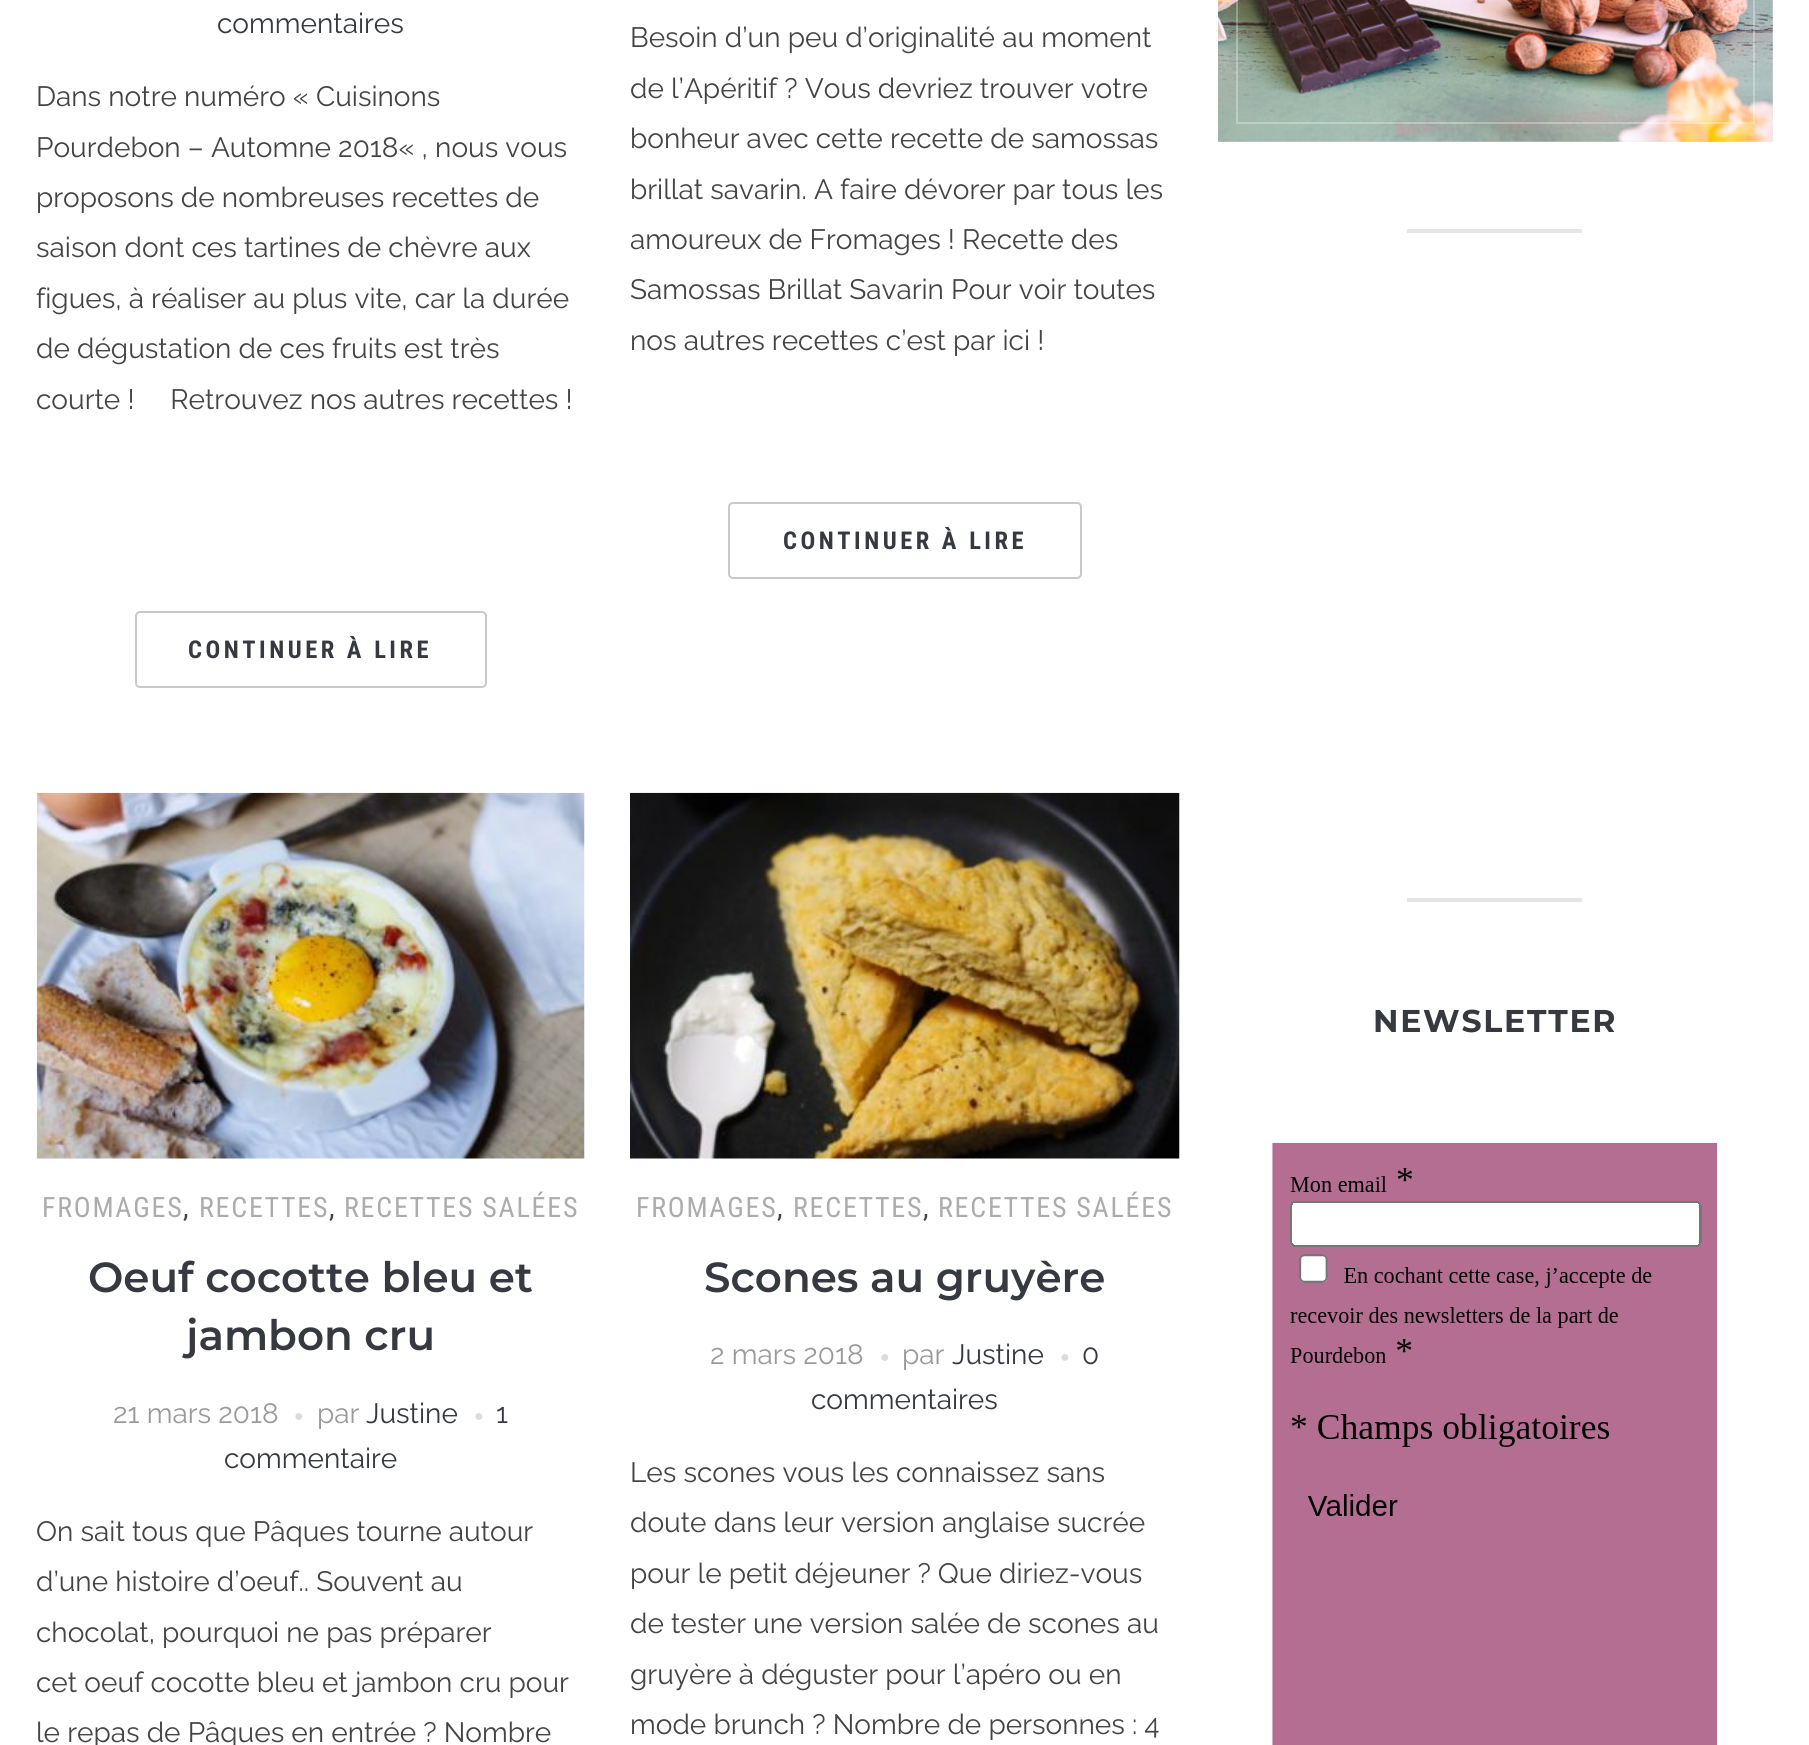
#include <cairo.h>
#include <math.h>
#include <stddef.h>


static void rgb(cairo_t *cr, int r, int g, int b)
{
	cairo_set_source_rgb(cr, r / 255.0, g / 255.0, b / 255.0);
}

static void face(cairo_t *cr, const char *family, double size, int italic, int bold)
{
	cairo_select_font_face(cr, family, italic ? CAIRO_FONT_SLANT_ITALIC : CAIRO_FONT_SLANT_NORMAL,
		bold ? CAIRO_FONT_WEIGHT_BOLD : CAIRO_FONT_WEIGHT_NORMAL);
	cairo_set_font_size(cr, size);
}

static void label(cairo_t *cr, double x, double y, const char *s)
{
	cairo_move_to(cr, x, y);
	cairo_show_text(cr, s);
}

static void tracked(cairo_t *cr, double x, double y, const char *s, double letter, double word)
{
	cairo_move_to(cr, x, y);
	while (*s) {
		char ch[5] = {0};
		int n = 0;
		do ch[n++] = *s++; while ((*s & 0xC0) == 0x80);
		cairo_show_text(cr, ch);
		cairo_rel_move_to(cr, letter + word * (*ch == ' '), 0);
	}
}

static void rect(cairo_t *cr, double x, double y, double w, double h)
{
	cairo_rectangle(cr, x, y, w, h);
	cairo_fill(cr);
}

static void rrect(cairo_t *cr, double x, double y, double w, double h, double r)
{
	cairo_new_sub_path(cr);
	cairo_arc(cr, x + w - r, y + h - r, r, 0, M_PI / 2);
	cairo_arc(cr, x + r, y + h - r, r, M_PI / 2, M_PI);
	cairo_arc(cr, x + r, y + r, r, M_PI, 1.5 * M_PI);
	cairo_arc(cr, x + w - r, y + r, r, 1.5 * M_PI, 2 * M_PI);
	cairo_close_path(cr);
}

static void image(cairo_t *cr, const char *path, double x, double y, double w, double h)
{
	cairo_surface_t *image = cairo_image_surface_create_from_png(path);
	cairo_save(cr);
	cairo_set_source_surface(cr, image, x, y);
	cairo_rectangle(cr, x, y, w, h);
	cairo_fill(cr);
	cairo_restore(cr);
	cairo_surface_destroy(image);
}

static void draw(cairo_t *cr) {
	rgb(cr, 255, 255, 255);
	cairo_paint(cr);
	face(cr, "Raleway", 28, 0, 0);
	rgb(cr, 54, 57, 64);
	label(cr, 217, 33, "commentaires");
	rgb(cr, 68, 68, 68);
	label(cr, 36, 106, "Dans notre numéro « Cuisinons");
	label(cr, 36, 157, "Pourdebon – Automne 2018« , nous vous");
	label(cr, 36, 207, "proposons de nombreuses recettes de");
	label(cr, 36, 257, "saison dont ces tartines de chèvre aux");
	label(cr, 36, 308, "figues, à réaliser au plus vite, car la durée");
	label(cr, 36, 358, "de dégustation de ces fruits est très");
	label(cr, 36, 409, "courte !     Retrouvez nos autres recettes !");
	rrect(cr, 136, 612, 350, 75, 4);
	rgb(cr, 199, 201, 207);
	cairo_stroke(cr);
	face(cr, "Roboto Condensed", 24.5, 0, 1);
	rgb(cr, 54, 57, 64);
	tracked(cr, 188, 658, "CONTINUER À LIRE", 3.5, 0);
	face(cr, "Raleway", 28, 0, 0);
	rgb(cr, 68, 68, 68);
	label(cr, 630, 47, "Besoin d’un peu d’originalité au moment");
	label(cr, 630, 98, "de l’Apéritif ? Vous devriez trouver votre");
	label(cr, 630, 148, "bonheur avec cette recette de samossas");
	label(cr, 630, 199, "brillat savarin. A faire dévorer par tous les");
	label(cr, 630, 249, "amoureux de Fromages ! Recette des");
	label(cr, 630, 299, "Samossas Brillat Savarin Pour voir toutes");
	label(cr, 630, 350, "nos autres recettes c’est par ici !");
	rrect(cr, 729, 503, 352, 75, 4);
	rgb(cr, 199, 201, 207);
	cairo_stroke(cr);
	face(cr, "Roboto Condensed", 24.5, 0, 1);
	rgb(cr, 54, 57, 64);
	tracked(cr, 783, 549, "CONTINUER À LIRE", 3.5, 0);
	image(cr, "image0.png", 36, 792, 549, 367);
	face(cr, "Roboto Condensed", 28, 0, 0);
	rgb(cr, 172, 172, 172);
	tracked(cr, 42, 1217, "FROMAGES", 1.75, 0);
	rgb(cr, 68, 68, 68);
	tracked(cr, 183, 1217, ",", 1.75, 0);
	rgb(cr, 172, 172, 172);
	tracked(cr, 199, 1217, "RECETTES", 1.75, 0);
	rgb(cr, 68, 68, 68);
	tracked(cr, 329, 1217, ",", 1.75, 0);
	rgb(cr, 172, 172, 172);
	tracked(cr, 344, 1217, "RECETTES SALÉES", 1.75, 0);
	face(cr, "Montserrat SemiBold", 42, 0, 0);
	rgb(cr, 54, 57, 64);
	label(cr, 88, 1292, "Oeuf cocotte bleu et");
	label(cr, 186, 1350, "jambon cru");
	face(cr, "Raleway", 28, 0, 0);
	rgb(cr, 153, 153, 153);
	label(cr, 113, 1423, "21 mars 2018");
	face(cr, "Liberation Sans", 16, 0, 0);
	rgb(cr, 219, 221, 221);
	label(cr, 294, 1421, "●");
	face(cr, "Raleway", 28, 0, 0);
	rgb(cr, 153, 153, 153);
	label(cr, 317, 1423, "par");
	rgb(cr, 54, 57, 64);
	label(cr, 366, 1423, "Justine");
	face(cr, "Liberation Sans", 16, 0, 0);
	rgb(cr, 219, 221, 221);
	label(cr, 474, 1421, "●");
	face(cr, "Raleway", 28, 0, 0);
	rgb(cr, 54, 57, 64);
	label(cr, 496, 1423, "1");
	label(cr, 224, 1468, "commentaire");
	rgb(cr, 68, 68, 68);
	label(cr, 36, 1541, "On sait tous que Pâques tourne autour");
	label(cr, 36, 1591, "d’une histoire d’oeuf.. Souvent au");
	label(cr, 36, 1642, "chocolat, pourquoi ne pas préparer");
	label(cr, 36, 1692, "cet oeuf cocotte bleu et jambon cru pour");
	label(cr, 36, 1742, "le repas de Pâques en entrée ? Nombre");
	image(cr, "image1.png", 630, 792, 550, 367);
	face(cr, "Roboto Condensed", 28, 0, 0);
	rgb(cr, 172, 172, 172);
	tracked(cr, 636, 1217, "FROMAGES", 1.75, 0);
	rgb(cr, 68, 68, 68);
	tracked(cr, 777, 1217, ",", 1.75, 0);
	rgb(cr, 172, 172, 172);
	tracked(cr, 793, 1217, "RECETTES", 1.75, 0);
	rgb(cr, 68, 68, 68);
	tracked(cr, 923, 1217, ",", 1.75, 0);
	rgb(cr, 172, 172, 172);
	tracked(cr, 938, 1217, "RECETTES SALÉES", 1.75, 0);
	face(cr, "Montserrat SemiBold", 42, 0, 0);
	rgb(cr, 54, 57, 64);
	label(cr, 704, 1292, "Scones au gruyère");
	face(cr, "Raleway", 28, 0, 0);
	rgb(cr, 153, 153, 153);
	label(cr, 710, 1364, "2 mars 2018");
	face(cr, "Liberation Sans", 16, 0, 0);
	rgb(cr, 219, 221, 221);
	label(cr, 880, 1362, "●");
	face(cr, "Raleway", 28, 0, 0);
	rgb(cr, 153, 153, 153);
	label(cr, 902, 1364, "par");
	rgb(cr, 54, 57, 64);
	label(cr, 952, 1364, "Justine");
	face(cr, "Liberation Sans", 16, 0, 0);
	rgb(cr, 219, 221, 221);
	label(cr, 1060, 1362, "●");
	face(cr, "Raleway", 28, 0, 0);
	rgb(cr, 54, 57, 64);
	label(cr, 1082, 1364, "0");
	label(cr, 811, 1409, "commentaires");
	rgb(cr, 68, 68, 68);
	label(cr, 630, 1482, "Les scones vous les connaissez sans");
	label(cr, 630, 1532, "doute dans leur version anglaise sucrée");
	label(cr, 630, 1583, "pour le petit déjeuner ? Que diriez-vous");
	label(cr, 630, 1633, "de tester une version salée de scones au");
	label(cr, 630, 1684, "gruyère à déguster pour l’apéro ou en");
	label(cr, 630, 1734, "mode brunch ? Nombre de personnes : 4");
	rgb(cr, 238, 238, 238);
	rect(cr, 1218, 0, 555, 142);
	image(cr, "image2.png", 1218, 0, 555, 142);
	cairo_rectangle(cr, 1237, -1, 517, 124);
	cairo_set_source_rgba(cr, 1, 1, 1, 0.3);
	cairo_stroke(cr);
	rgb(cr, 229, 229, 229);
	rect(cr, 1407, 229, 175, 4);
	rect(cr, 1407, 898, 175, 4);
	face(cr, "Montserrat", 31.5, 0, 1);
	rgb(cr, 54, 57, 64);
	tracked(cr, 1373, 1032, "NEWSLETTER", 1.75, 0);
	image(cr, "image3.png", 1272, 1142, 446, 603);
}

int main(void) {
	cairo_surface_t *surface = cairo_image_surface_create(CAIRO_FORMAT_RGB24, 1809, 1745);
	cairo_t *cr = cairo_create(surface);
	cairo_font_options_t *options = cairo_font_options_create();
	cairo_font_options_set_hint_metrics(options, CAIRO_HINT_METRICS_OFF);
	cairo_font_options_set_hint_style(options, CAIRO_HINT_STYLE_NONE);
	cairo_set_font_options(cr, options);
	cairo_set_miter_limit(cr, 4);
	draw(cr);
	cairo_surface_write_to_png(surface, "render.png");
	cairo_font_options_destroy(options);
	cairo_destroy(cr);
	cairo_surface_destroy(surface);
	return 0;
}
